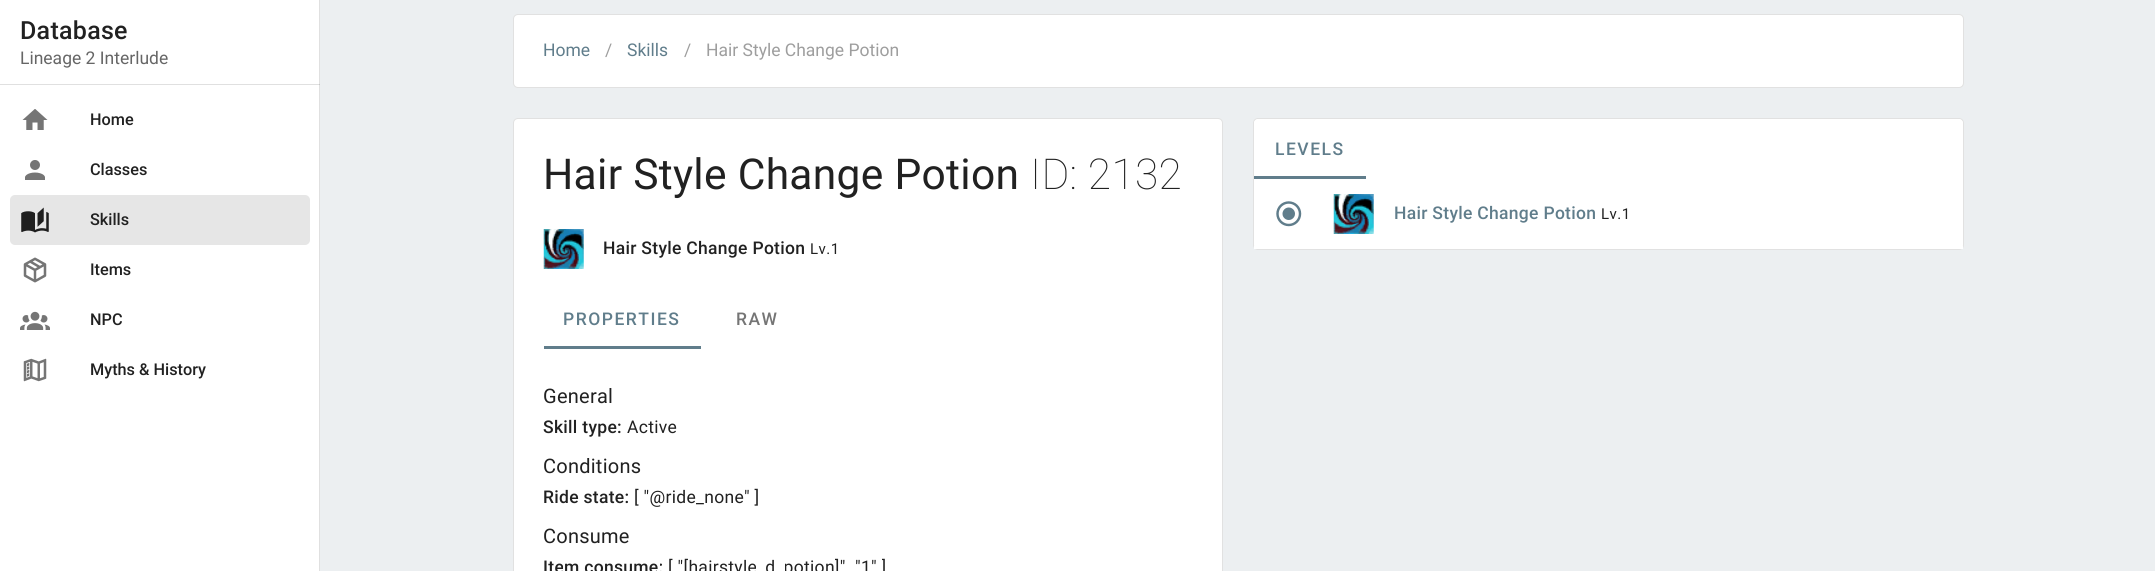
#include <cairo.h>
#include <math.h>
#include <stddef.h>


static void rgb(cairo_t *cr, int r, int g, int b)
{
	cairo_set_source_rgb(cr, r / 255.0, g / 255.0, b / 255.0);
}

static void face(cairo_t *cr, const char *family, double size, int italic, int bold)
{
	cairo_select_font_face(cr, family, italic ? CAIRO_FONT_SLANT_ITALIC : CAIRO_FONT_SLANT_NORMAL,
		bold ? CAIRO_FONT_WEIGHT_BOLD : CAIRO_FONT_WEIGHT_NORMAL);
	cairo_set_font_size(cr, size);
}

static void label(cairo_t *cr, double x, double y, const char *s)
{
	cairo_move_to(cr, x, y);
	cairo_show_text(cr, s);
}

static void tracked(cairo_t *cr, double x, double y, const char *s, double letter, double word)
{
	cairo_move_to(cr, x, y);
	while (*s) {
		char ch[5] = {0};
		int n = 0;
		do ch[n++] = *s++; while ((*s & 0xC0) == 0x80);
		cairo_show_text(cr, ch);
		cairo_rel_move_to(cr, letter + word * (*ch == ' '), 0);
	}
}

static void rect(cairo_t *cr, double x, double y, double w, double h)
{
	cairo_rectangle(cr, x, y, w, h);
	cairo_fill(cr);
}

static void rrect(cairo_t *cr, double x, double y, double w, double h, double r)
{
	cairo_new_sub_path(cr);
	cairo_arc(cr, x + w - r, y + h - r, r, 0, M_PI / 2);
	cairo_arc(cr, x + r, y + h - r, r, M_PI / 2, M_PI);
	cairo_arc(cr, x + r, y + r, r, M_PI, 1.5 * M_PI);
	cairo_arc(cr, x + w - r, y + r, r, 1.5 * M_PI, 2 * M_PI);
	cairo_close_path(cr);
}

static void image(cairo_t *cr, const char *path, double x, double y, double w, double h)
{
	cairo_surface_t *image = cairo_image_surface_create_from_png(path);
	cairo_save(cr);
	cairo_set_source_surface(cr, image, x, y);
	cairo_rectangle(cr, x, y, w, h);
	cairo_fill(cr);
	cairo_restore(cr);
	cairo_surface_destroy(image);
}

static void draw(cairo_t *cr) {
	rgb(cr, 236, 239, 241);
	cairo_paint(cr);
	rgb(cr, 255, 255, 255);
	rect(cr, 0, 0, 319, 571);
	rgb(cr, 224, 224, 224);
	rect(cr, 319, 0, 1, 571);
	face(cr, "Roboto Medium", 25, 0, 0);
	rgb(cr, 33, 33, 33);
	tracked(cr, 20, 39, "Database", 0.3, 0);
	face(cr, "Roboto", 17.5, 0, 0);
	rgb(cr, 102, 102, 102);
	label(cr, 20, 64, "Lineage 2 Interlude");
	rgb(cr, 224, 224, 224);
	rect(cr, 0, 84, 320, 1);
	rgb(cr, 197, 197, 197);
	rect(cr, 319, 84, 1, 1);
	image(cr, "image0.png", 22, 109, 26, 21);
	face(cr, "Roboto Medium", 16.25, 0, 0);
	rgb(cr, 33, 33, 33);
	label(cr, 90, 125, "Home");
	image(cr, "image1.png", 25, 160, 20, 20);
	label(cr, 90, 175, "Classes");
	cairo_set_source_rgba(cr, 0, 0, 0, 0.1);
	rrect(cr, 10, 195, 300, 50, 5);
	cairo_fill(cr);
	image(cr, "image2.png", 21, 207, 28, 26);
	rgb(cr, 33, 33, 33);
	label(cr, 90, 225, "Skills");
	image(cr, "image3.png", 23, 257, 24, 26);
	label(cr, 90, 275, "Items");
	image(cr, "image4.png", 20, 311, 30, 19);
	label(cr, 90, 325, "NPC");
	image(cr, "image5.png", 23, 358, 24, 24);
	label(cr, 90, 375, "Myths & History");
	rgb(cr, 255, 255, 255);
	rrect(cr, 513, 14, 1451, 74, 5);
	cairo_fill(cr);
	rrect(cr, 513.5, 14.5, 1450, 73, 4.5);
	cairo_set_source_rgba(cr, 0, 0, 0, 0.12);
	cairo_set_line_width(cr, 1);
	cairo_stroke(cr);
	face(cr, "Roboto", 17.5, 0, 0);
	rgb(cr, 96, 125, 139);
	label(cr, 543, 56, "Home");
	rgb(cr, 158, 158, 158);
	label(cr, 605, 56, "/");
	rgb(cr, 96, 125, 139);
	label(cr, 627, 56, "Skills");
	rgb(cr, 158, 158, 158);
	label(cr, 684, 56, "/");
	label(cr, 706, 56, "Hair Style Change Potion");
	rgb(cr, 255, 255, 255);
	rrect(cr, 513, 118, 710, 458, 5);
	cairo_fill(cr);
	rrect(cr, 513.5, 118.5, 709, 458, 4.5);
	cairo_set_source_rgba(cr, 0, 0, 0, 0.12);
	cairo_stroke(cr);
	face(cr, "Roboto", 42.5, 0, 0);
	rgb(cr, 33, 33, 33);
	tracked(cr, 543, 189, "Hair Style Change Potion", 0.3, 0);
	face(cr, "Roboto Thin", 42.5, 0, 0);
	tracked(cr, 1030, 189, "ID: 2132", 0.3, 0);
	image(cr, "image6.png", 543, 229, 41, 40);
	face(cr, "Roboto Medium", 17.5, 0, 0);
	tracked(cr, 603, 254, "Hair Style Change Potion", 0.3, 0);
	face(cr, "Roboto", 15, 0, 0);
	tracked(cr, 810, 254, "Lv.1", 0.5, 0);
	face(cr, "Roboto Medium", 17.5, 0, 0);
	rgb(cr, 96, 125, 139);
	tracked(cr, 563, 325, "PROPERTIES", 1.5, 0);
	rgb(cr, 117, 117, 117);
	tracked(cr, 736, 325, "RAW", 1.5, 0);
	rgb(cr, 96, 125, 139);
	rect(cr, 544, 346, 157, 3);
	face(cr, "Roboto", 20, 0, 0);
	rgb(cr, 33, 33, 33);
	tracked(cr, 543, 403, "General", 0.25, 0);
	face(cr, "Roboto Medium", 17.5, 0, 0);
	tracked(cr, 543, 433, "Skill type:", 0.3, 0);
	face(cr, "Roboto", 17.5, 0, 0);
	tracked(cr, 627, 433, "Active", 0.3, 0);
	face(cr, "Roboto", 20, 0, 0);
	tracked(cr, 543, 473, "Conditions", 0.25, 0);
	face(cr, "Roboto Medium", 17.5, 0, 0);
	tracked(cr, 543, 503, "Ride state:", 0.3, 0);
	face(cr, "Roboto", 17.5, 0, 0);
	tracked(cr, 634, 503, "[ \"@ride_none\" ]", 0.3, 0);
	face(cr, "Roboto", 20, 0, 0);
	tracked(cr, 543, 543, "Consume", 0.25, 0);
	face(cr, "Roboto Medium", 17.5, 0, 0);
	tracked(cr, 543, 573, "Item consume:", 0.3, 0);
	face(cr, "Roboto", 17.5, 0, 0);
	tracked(cr, 668, 573, "[ \"[hairstyle_d_potion]\"", 0.3, 0);
	tracked(cr, 855, 573, "\"1\" ]", 0.3, 0);
	rgb(cr, 255, 255, 255);
	rrect(cr, 1253, 118, 711, 132, 5);
	cairo_fill(cr);
	rrect(cr, 1253.5, 118.5, 710, 131, 4.5);
	cairo_set_source_rgba(cr, 0, 0, 0, 0.12);
	cairo_stroke(cr);
	rgb(cr, 255, 255, 255);
	cairo_new_path(cr);
	cairo_move_to(cr, 1259, 119);
	cairo_line_to(cr, 1958, 119);
	cairo_curve_to(cr, 1961, 119, 1963, 121, 1963, 124);
	cairo_line_to(cr, 1963, 179);
	cairo_line_to(cr, 1254, 179);
	cairo_line_to(cr, 1254, 124);
	cairo_curve_to(cr, 1254, 121, 1256, 119, 1259, 119);
	cairo_close_path(cr);
	cairo_fill(cr);
	face(cr, "Roboto Medium", 17.5, 0, 0);
	rgb(cr, 96, 125, 139);
	tracked(cr, 1275, 155, "LEVELS", 1.5, 0);
	rect(cr, 1254, 176, 112, 3);
	rgb(cr, 255, 255, 255);
	rect(cr, 1254, 246, 709, 3);
	image(cr, "image7.png", 1276, 201, 26, 26);
	image(cr, "image8.png", 1333, 194, 41, 40);
	rgb(cr, 96, 125, 139);
	tracked(cr, 1394, 219, "Hair Style Change Potion", 0.3, 0);
	face(cr, "Roboto", 15, 0, 0);
	rgb(cr, 33, 33, 33);
	tracked(cr, 1601, 219, "Lv.1", 0.5, 0);
}

int main(void) {
	cairo_surface_t *surface = cairo_image_surface_create(CAIRO_FORMAT_RGB24, 2155, 571);
	cairo_t *cr = cairo_create(surface);
	cairo_font_options_t *options = cairo_font_options_create();
	cairo_font_options_set_hint_metrics(options, CAIRO_HINT_METRICS_OFF);
	cairo_font_options_set_hint_style(options, CAIRO_HINT_STYLE_NONE);
	cairo_set_font_options(cr, options);
	cairo_set_miter_limit(cr, 4);
	draw(cr);
	cairo_surface_write_to_png(surface, "render.png");
	cairo_font_options_destroy(options);
	cairo_destroy(cr);
	cairo_surface_destroy(surface);
	return 0;
}
